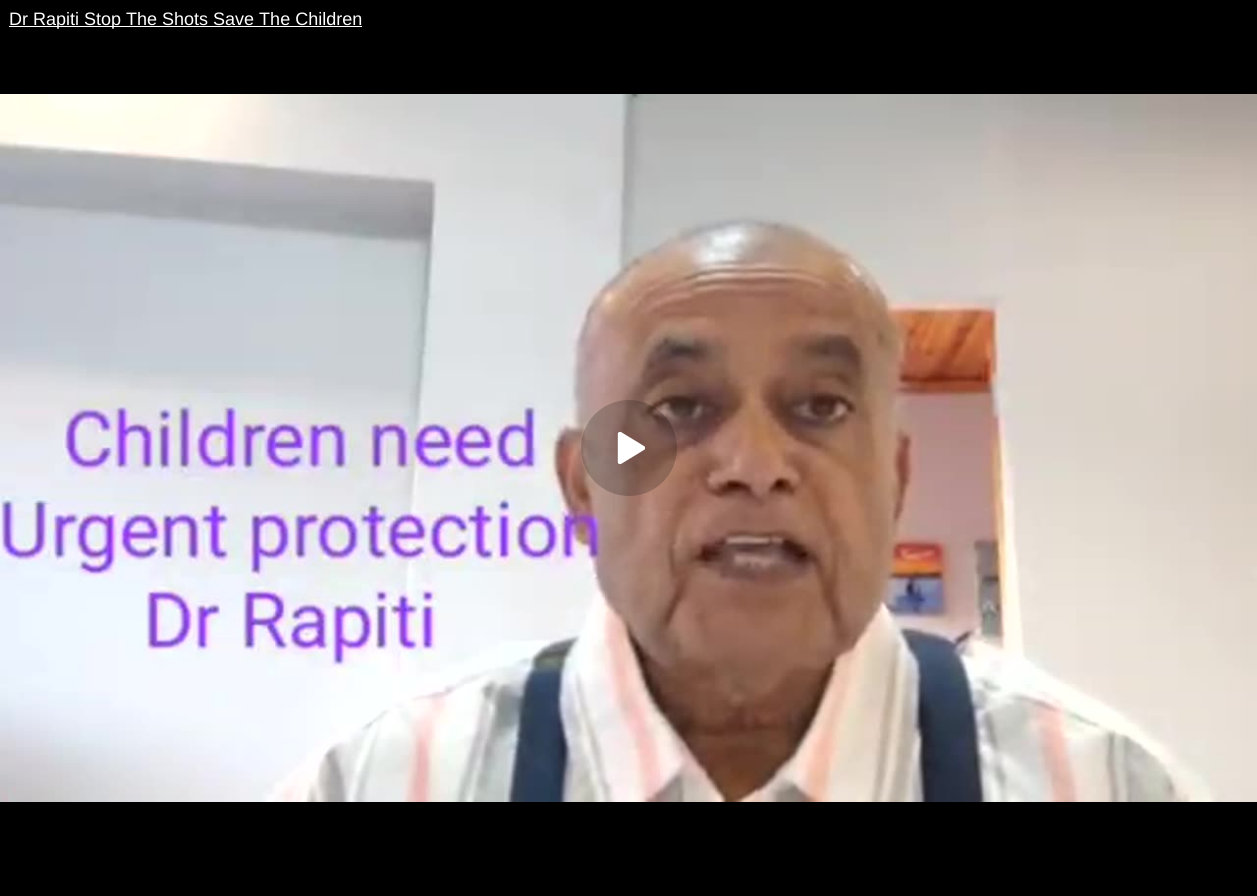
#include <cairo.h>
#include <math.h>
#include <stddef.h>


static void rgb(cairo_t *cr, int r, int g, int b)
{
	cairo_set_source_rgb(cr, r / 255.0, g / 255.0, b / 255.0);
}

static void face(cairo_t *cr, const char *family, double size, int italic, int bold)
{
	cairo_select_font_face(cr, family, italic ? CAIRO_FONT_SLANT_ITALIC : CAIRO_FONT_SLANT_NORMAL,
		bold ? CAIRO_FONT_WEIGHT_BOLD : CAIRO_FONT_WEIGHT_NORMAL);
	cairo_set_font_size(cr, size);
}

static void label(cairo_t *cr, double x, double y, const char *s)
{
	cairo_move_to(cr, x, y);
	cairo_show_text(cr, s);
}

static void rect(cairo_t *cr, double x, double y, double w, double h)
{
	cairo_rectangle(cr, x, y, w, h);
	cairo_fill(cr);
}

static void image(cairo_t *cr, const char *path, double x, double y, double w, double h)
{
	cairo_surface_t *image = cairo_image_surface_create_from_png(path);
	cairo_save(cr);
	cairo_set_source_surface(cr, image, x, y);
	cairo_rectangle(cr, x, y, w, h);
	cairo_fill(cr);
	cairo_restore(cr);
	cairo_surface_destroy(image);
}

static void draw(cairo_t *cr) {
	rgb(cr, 0, 0, 0);
	cairo_paint(cr);
	rgb(cr, 255, 255, 255);
	rect(cr, 9, 26, 353, 1);
	face(cr, "Liberation Sans", 18, 0, 0);
	label(cr, 9, 25, "Dr Rapiti Stop The Shots Save The Children");
	image(cr, "image0.png", 0, 94, 1257, 708);
	cairo_set_source_rgba(cr, 0, 0, 0, 0.2);
	cairo_arc(cr, 629, 448, 48, 0, 2 * M_PI);
	cairo_fill(cr);
	rgb(cr, 255, 255, 255);
	cairo_new_path(cr);
	cairo_move_to(cr, 643, 448);
	cairo_line_to(cr, 620, 434);
	cairo_line_to(cr, 620, 462);
	cairo_close_path(cr);
	cairo_fill(cr);
	cairo_save(cr);
	cairo_rectangle(cr, 613, 432, 32, 32);
	cairo_clip(cr);
	cairo_new_path(cr);
	cairo_move_to(cr, 643, 448);
	cairo_line_to(cr, 620, 434);
	cairo_line_to(cr, 620, 462);
	cairo_close_path(cr);
	cairo_set_line_width(cr, 4.4);
	cairo_set_line_join(cr, CAIRO_LINE_JOIN_ROUND);
	cairo_stroke(cr);
	cairo_restore(cr);
}

int main(void) {
	cairo_surface_t *surface = cairo_image_surface_create(CAIRO_FORMAT_RGB24, 1257, 896);
	cairo_t *cr = cairo_create(surface);
	cairo_font_options_t *options = cairo_font_options_create();
	cairo_font_options_set_hint_metrics(options, CAIRO_HINT_METRICS_OFF);
	cairo_font_options_set_hint_style(options, CAIRO_HINT_STYLE_NONE);
	cairo_set_font_options(cr, options);
	cairo_set_miter_limit(cr, 4);
	draw(cr);
	cairo_surface_write_to_png(surface, "render.png");
	cairo_font_options_destroy(options);
	cairo_destroy(cr);
	cairo_surface_destroy(surface);
	return 0;
}
